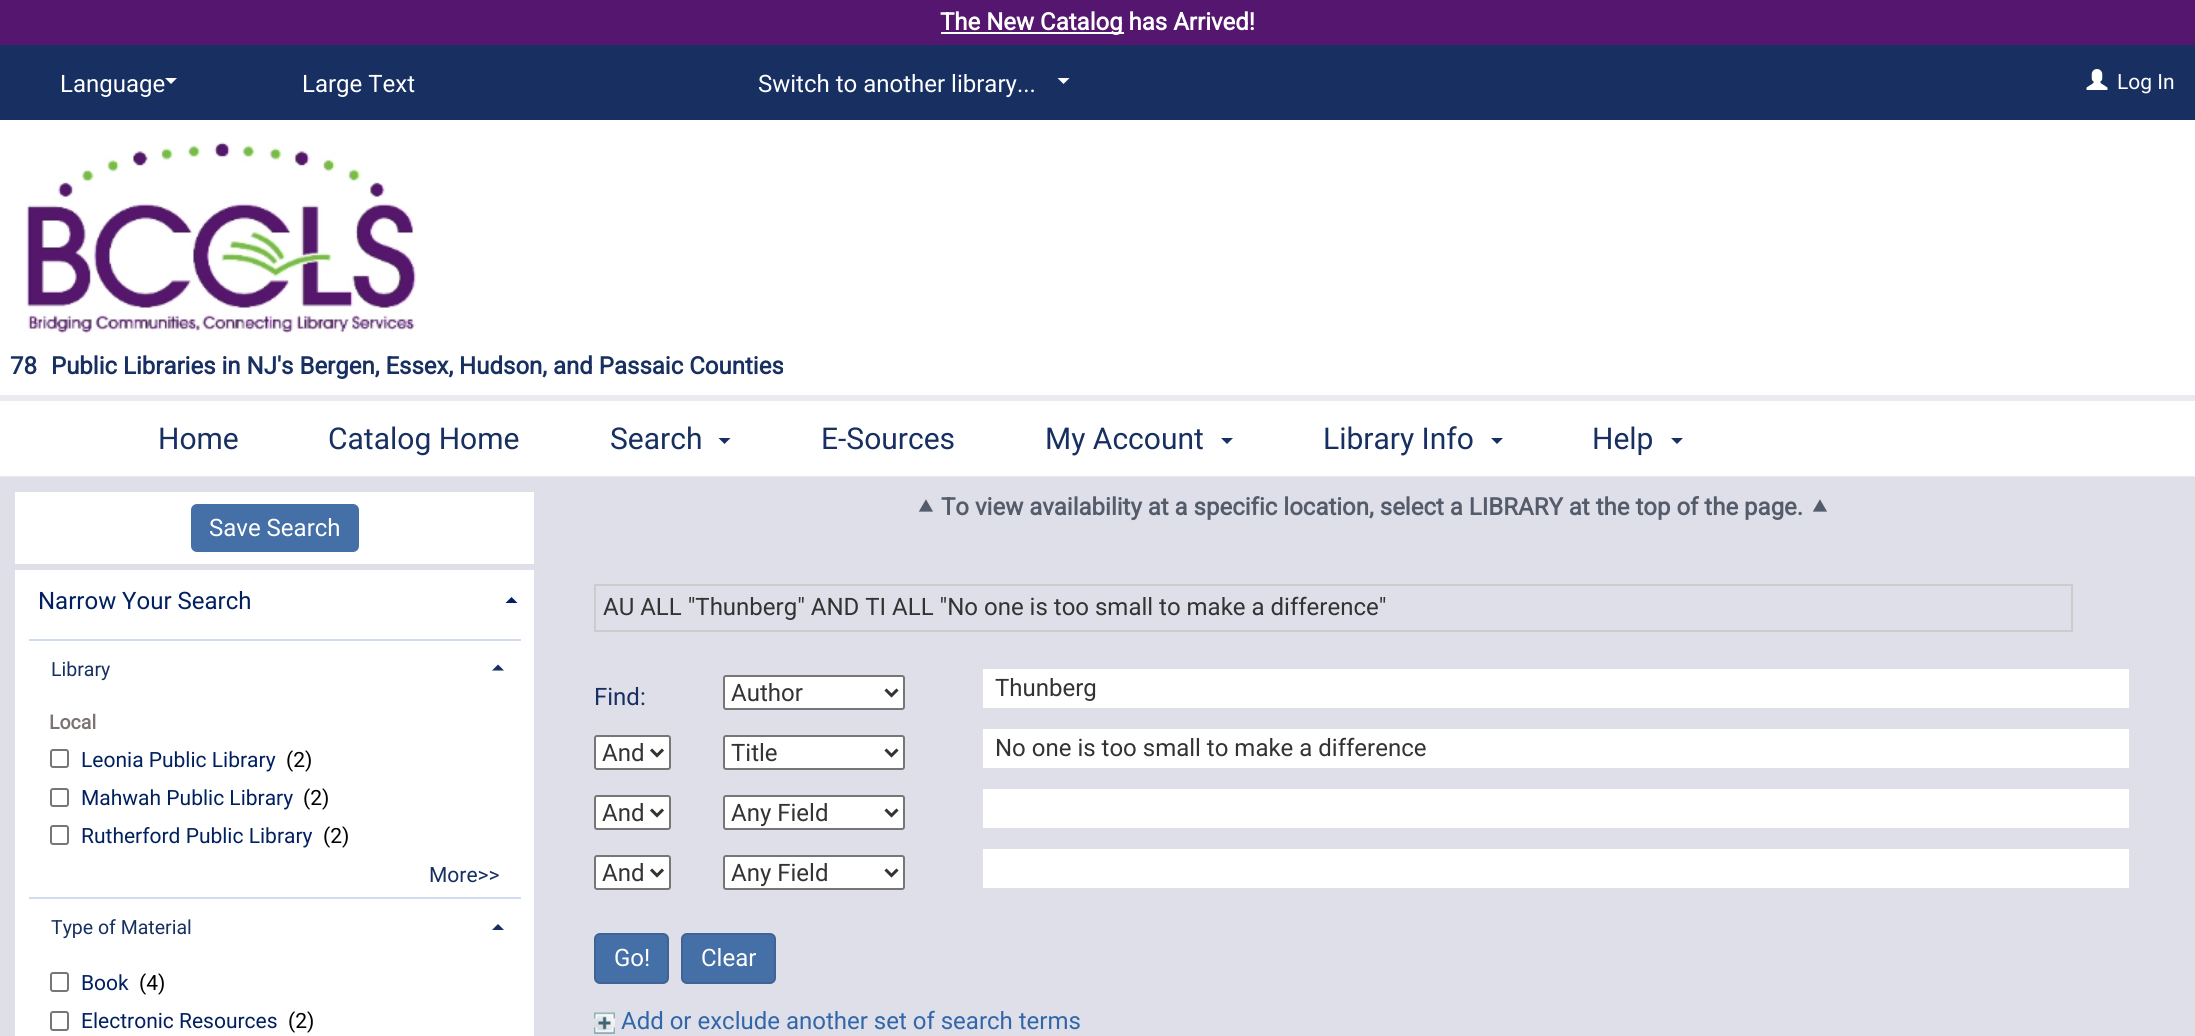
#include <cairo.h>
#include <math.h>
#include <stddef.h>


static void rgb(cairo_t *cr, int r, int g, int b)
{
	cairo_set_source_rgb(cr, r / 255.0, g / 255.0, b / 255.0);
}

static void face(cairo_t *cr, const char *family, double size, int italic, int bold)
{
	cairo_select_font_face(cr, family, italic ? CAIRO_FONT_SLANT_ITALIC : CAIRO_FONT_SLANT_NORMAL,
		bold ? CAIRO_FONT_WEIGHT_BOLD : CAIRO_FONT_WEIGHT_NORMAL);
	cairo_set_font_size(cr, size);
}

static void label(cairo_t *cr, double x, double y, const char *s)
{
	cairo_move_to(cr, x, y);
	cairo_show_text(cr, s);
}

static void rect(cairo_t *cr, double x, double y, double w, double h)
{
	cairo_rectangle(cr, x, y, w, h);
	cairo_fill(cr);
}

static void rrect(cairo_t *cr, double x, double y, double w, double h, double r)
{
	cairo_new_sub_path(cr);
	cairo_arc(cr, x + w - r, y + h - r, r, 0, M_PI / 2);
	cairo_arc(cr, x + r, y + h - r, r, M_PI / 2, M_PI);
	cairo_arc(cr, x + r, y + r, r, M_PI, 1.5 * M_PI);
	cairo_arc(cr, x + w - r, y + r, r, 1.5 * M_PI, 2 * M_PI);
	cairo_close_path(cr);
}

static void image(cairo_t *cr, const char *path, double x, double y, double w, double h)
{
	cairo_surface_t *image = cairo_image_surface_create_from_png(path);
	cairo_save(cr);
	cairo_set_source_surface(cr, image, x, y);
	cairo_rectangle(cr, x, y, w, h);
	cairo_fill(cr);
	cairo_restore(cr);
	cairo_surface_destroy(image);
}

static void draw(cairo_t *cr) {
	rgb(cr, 84, 22, 110);
	cairo_paint(cr);
	rgb(cr, 255, 255, 255);
	rect(cr, 941, 32, 183, 2);
	face(cr, "Roboto", 24, 0, 1);
	label(cr, 940, 30, "The New Catalog has Arrived!");
	rgb(cr, 24, 48, 97);
	rect(cr, 0, 45, 2195, 75);
	rgb(cr, 234, 235, 240);
	rect(cr, 0, 476, 2195, 1);
	face(cr, "Roboto", 24, 0, 0);
	rgb(cr, 255, 255, 255);
	label(cr, 60, 92, "Language");
	cairo_new_path(cr);
	cairo_move_to(cr, 165, 78);
	cairo_line_to(cr, 177, 78);
	cairo_line_to(cr, 171, 84);
	cairo_close_path(cr);
	cairo_fill(cr);
	label(cr, 302, 92, "Large Text");
	label(cr, 758, 92, "Switch to another library...");
	cairo_new_path(cr);
	cairo_move_to(cr, 1057.5, 78);
	cairo_line_to(cr, 1069.5, 78);
	cairo_line_to(cr, 1063.5, 84);
	cairo_close_path(cr);
	cairo_fill(cr);
	rect(cr, 0, 401, 2195, 75);
	rgb(cr, 234, 235, 240);
	rect(cr, 0, 395, 2195, 6);
	face(cr, "Roboto", 30, 0, 0);
	rgb(cr, 24, 48, 97);
	label(cr, 158, 449, "Home");
	label(cr, 328, 449, "Catalog Home");
	label(cr, 610, 449, "Search");
	cairo_new_path(cr);
	cairo_move_to(cr, 718.5, 438);
	cairo_line_to(cr, 730.5, 438);
	cairo_line_to(cr, 724.5, 444);
	cairo_close_path(cr);
	cairo_fill(cr);
	label(cr, 821, 449, "E-Sources");
	label(cr, 1045, 449, "My Account");
	cairo_new_path(cr);
	cairo_move_to(cr, 1221, 438);
	cairo_line_to(cr, 1233, 438);
	cairo_line_to(cr, 1227, 444);
	cairo_close_path(cr);
	cairo_fill(cr);
	label(cr, 1323, 449, "Library Info");
	cairo_new_path(cr);
	cairo_move_to(cr, 1491, 438);
	cairo_line_to(cr, 1503, 438);
	cairo_line_to(cr, 1497, 444);
	cairo_close_path(cr);
	cairo_fill(cr);
	label(cr, 1592, 449, "Help");
	cairo_new_path(cr);
	cairo_move_to(cr, 1671, 438);
	cairo_line_to(cr, 1683, 438);
	cairo_line_to(cr, 1677, 444);
	cairo_close_path(cr);
	cairo_fill(cr);
	image(cr, "image0.png", 2086, 69, 22, 21);
	face(cr, "Roboto", 21, 0, 0);
	rgb(cr, 255, 255, 255);
	label(cr, 2117, 89, "Log In");
	rect(cr, 0, 120, 2195, 275);
	image(cr, "image1.png", 26, 142, 390, 192);
	face(cr, "Roboto", 24, 0, 1);
	rgb(cr, 24, 48, 97);
	label(cr, 10, 374, "78");
	label(cr, 51, 374, "Public Libraries in NJ's Bergen, Essex, Hudson, and Passaic Counties");
	rgb(cr, 222, 223, 232);
	rect(cr, 0, 477, 549, 559);
	rgb(cr, 255, 255, 255);
	rect(cr, 15, 492, 519, 72);
	rgb(cr, 69, 111, 167);
	rrect(cr, 191, 504, 168, 48, 6);
	cairo_fill(cr);
	face(cr, "Roboto", 24, 0, 0);
	rgb(cr, 255, 255, 255);
	label(cr, 209, 536, "Save Search");
	rect(cr, 15, 570, 519, 466);
	rgb(cr, 0, 32, 96);
	label(cr, 38, 609, "Narrow Your Search");
	cairo_new_path(cr);
	cairo_move_to(cr, 517.5, 603);
	cairo_line_to(cr, 505.5, 603);
	cairo_line_to(cr, 511.5, 597);
	cairo_close_path(cr);
	cairo_fill(cr);
	rgb(cr, 209, 220, 244);
	rect(cr, 29, 639, 492, 2);
	face(cr, "Roboto", 19.5, 0, 0);
	rgb(cr, 24, 48, 97);
	label(cr, 51, 676, "Library");
	cairo_new_path(cr);
	cairo_move_to(cr, 504, 670.5);
	cairo_line_to(cr, 492, 670.5);
	cairo_line_to(cr, 498, 664.5);
	cairo_close_path(cr);
	cairo_fill(cr);
	face(cr, "Roboto", 19.5, 0, 1);
	rgb(cr, 125, 115, 115);
	label(cr, 49, 729, "Local");
	rrect(cr, 51, 750, 17, 17, 2);
	rgb(cr, 118, 118, 118);
	cairo_stroke(cr);
	face(cr, "Roboto", 21, 0, 0);
	rgb(cr, 0, 32, 96);
	label(cr, 81, 767, "Leonia Public Library");
	rgb(cr, 0, 0, 0);
	label(cr, 286, 767, "(2)");
	rrect(cr, 51, 789, 17, 17, 2);
	rgb(cr, 118, 118, 118);
	cairo_stroke(cr);
	rgb(cr, 0, 32, 96);
	label(cr, 81, 805, "Mahwah Public Library");
	rgb(cr, 0, 0, 0);
	label(cr, 303, 805, "(2)");
	rrect(cr, 51, 826, 17, 18, 2);
	rgb(cr, 118, 118, 118);
	cairo_stroke(cr);
	rgb(cr, 0, 32, 96);
	label(cr, 81, 843, "Rutherford Public Library");
	rgb(cr, 0, 0, 0);
	label(cr, 323, 843, "(2)");
	rgb(cr, 24, 48, 97);
	label(cr, 429, 882, "More>>");
	rgb(cr, 209, 220, 244);
	rect(cr, 29, 897, 492, 2);
	face(cr, "Roboto", 19.5, 0, 0);
	rgb(cr, 24, 48, 97);
	label(cr, 51, 934, "Type of Material");
	cairo_new_path(cr);
	cairo_move_to(cr, 504, 930);
	cairo_line_to(cr, 492, 930);
	cairo_line_to(cr, 498, 924);
	cairo_close_path(cr);
	cairo_fill(cr);
	rrect(cr, 51, 973, 17, 18, 2);
	rgb(cr, 118, 118, 118);
	cairo_stroke(cr);
	face(cr, "Roboto", 21, 0, 0);
	rgb(cr, 0, 32, 96);
	label(cr, 81, 990, "Book");
	rgb(cr, 0, 0, 0);
	label(cr, 139, 990, "(4)");
	rrect(cr, 51, 1012, 17, 18, 2);
	rgb(cr, 118, 118, 118);
	cairo_stroke(cr);
	rgb(cr, 0, 32, 96);
	label(cr, 81, 1028, "Electronic Resources");
	rgb(cr, 0, 0, 0);
	label(cr, 288, 1028, "(2)");
	rgb(cr, 222, 223, 232);
	rect(cr, 549, 477, 1646, 559);
	face(cr, "FreeSans", 24, 0, 1);
	rgb(cr, 84, 92, 107);
	label(cr, 916, 515, "⯅");
	face(cr, "Roboto", 24, 0, 1);
	label(cr, 941, 515, "To view availability at a specific location, select a LIBRARY at the top of the page.");
	face(cr, "FreeSans", 24, 0, 1);
	label(cr, 1810, 515, "⯅");
	cairo_rectangle(cr, 595, 585, 1477, 46);
	rgb(cr, 204, 204, 204);
	cairo_stroke(cr);
	face(cr, "Roboto", 24, 0, 0);
	rgb(cr, 51, 51, 51);
	label(cr, 603, 615, "AU ALL \"Thunberg\" AND TI ALL \"No one is too small to make a difference\"");
	rgb(cr, 24, 48, 97);
	label(cr, 594, 705, "Find:");
	rgb(cr, 255, 255, 255);
	rrect(cr, 724, 676, 180, 33, 2);
	cairo_fill_preserve(cr);
	rgb(cr, 118, 118, 118);
	cairo_stroke(cr);
	cairo_new_path(cr);
	cairo_move_to(cr, 885.5, 689.5);
	cairo_line_to(cr, 891.5, 695.5);
	cairo_line_to(cr, 897.5, 689.5);
	rgb(cr, 51, 51, 51);
	cairo_set_line_width(cr, 3);
	cairo_stroke(cr);
	label(cr, 731, 701, "Author");
	rgb(cr, 255, 255, 255);
	rect(cr, 983, 669, 1146, 39);
	rgb(cr, 51, 51, 51);
	label(cr, 995, 696, "Thunberg");
	rgb(cr, 255, 255, 255);
	rrect(cr, 595, 736, 75, 33, 2);
	cairo_fill_preserve(cr);
	rgb(cr, 118, 118, 118);
	cairo_set_line_width(cr, 2);
	cairo_stroke(cr);
	cairo_new_path(cr);
	cairo_move_to(cr, 651, 749.5);
	cairo_line_to(cr, 657, 755.5);
	cairo_line_to(cr, 663, 749.5);
	rgb(cr, 51, 51, 51);
	cairo_set_line_width(cr, 3);
	cairo_stroke(cr);
	label(cr, 602, 761, "And");
	rgb(cr, 255, 255, 255);
	rrect(cr, 724, 736, 180, 33, 2);
	cairo_fill_preserve(cr);
	rgb(cr, 118, 118, 118);
	cairo_set_line_width(cr, 2);
	cairo_stroke(cr);
	cairo_new_path(cr);
	cairo_move_to(cr, 885.5, 749.5);
	cairo_line_to(cr, 891.5, 755.5);
	cairo_line_to(cr, 897.5, 749.5);
	rgb(cr, 51, 51, 51);
	cairo_set_line_width(cr, 3);
	cairo_stroke(cr);
	label(cr, 731, 761, "Title");
	rgb(cr, 255, 255, 255);
	rect(cr, 983, 729, 1146, 39);
	rgb(cr, 51, 51, 51);
	label(cr, 995, 756, "No one is too small to make a difference");
	rgb(cr, 255, 255, 255);
	rrect(cr, 595, 796, 75, 33, 2);
	cairo_fill_preserve(cr);
	rgb(cr, 118, 118, 118);
	cairo_set_line_width(cr, 2);
	cairo_stroke(cr);
	cairo_new_path(cr);
	cairo_move_to(cr, 651, 809.5);
	cairo_line_to(cr, 657, 815.5);
	cairo_line_to(cr, 663, 809.5);
	rgb(cr, 51, 51, 51);
	cairo_set_line_width(cr, 3);
	cairo_stroke(cr);
	label(cr, 602, 821, "And");
	rgb(cr, 255, 255, 255);
	rrect(cr, 724, 796, 180, 33, 2);
	cairo_fill_preserve(cr);
	rgb(cr, 118, 118, 118);
	cairo_set_line_width(cr, 2);
	cairo_stroke(cr);
	cairo_new_path(cr);
	cairo_move_to(cr, 885.5, 809.5);
	cairo_line_to(cr, 891.5, 815.5);
	cairo_line_to(cr, 897.5, 809.5);
	rgb(cr, 51, 51, 51);
	cairo_set_line_width(cr, 3);
	cairo_stroke(cr);
	label(cr, 731, 821, "Any Field");
	rgb(cr, 255, 255, 255);
	rect(cr, 983, 789, 1146, 39);
	rrect(cr, 595, 856, 75, 33, 2);
	cairo_fill_preserve(cr);
	rgb(cr, 118, 118, 118);
	cairo_set_line_width(cr, 2);
	cairo_stroke(cr);
	cairo_new_path(cr);
	cairo_move_to(cr, 651, 869.5);
	cairo_line_to(cr, 657, 875.5);
	cairo_line_to(cr, 663, 869.5);
	rgb(cr, 51, 51, 51);
	cairo_set_line_width(cr, 3);
	cairo_stroke(cr);
	label(cr, 602, 881, "And");
	rgb(cr, 255, 255, 255);
	rrect(cr, 724, 856, 180, 33, 2);
	cairo_fill_preserve(cr);
	rgb(cr, 118, 118, 118);
	cairo_set_line_width(cr, 2);
	cairo_stroke(cr);
	cairo_new_path(cr);
	cairo_move_to(cr, 885.5, 869.5);
	cairo_line_to(cr, 891.5, 875.5);
	cairo_line_to(cr, 897.5, 869.5);
	rgb(cr, 51, 51, 51);
	cairo_set_line_width(cr, 3);
	cairo_stroke(cr);
	label(cr, 731, 881, "Any Field");
	rgb(cr, 255, 255, 255);
	rect(cr, 983, 849, 1146, 39);
	rgb(cr, 69, 111, 167);
	rrect(cr, 595, 934, 73, 49, 5);
	cairo_fill_preserve(cr);
	rgb(cr, 62, 99, 149);
	cairo_set_line_width(cr, 2);
	cairo_stroke(cr);
	rgb(cr, 255, 255, 255);
	label(cr, 614, 966, "Go!");
	rgb(cr, 69, 111, 167);
	rrect(cr, 682, 934, 93, 49, 5);
	cairo_fill_preserve(cr);
	rgb(cr, 62, 99, 149);
	cairo_stroke(cr);
	rgb(cr, 255, 255, 255);
	label(cr, 701, 966, "Clear");
	image(cr, "image2.png", 594, 1012, 21, 22);
	rgb(cr, 49, 102, 170);
	label(cr, 621, 1029, "Add or exclude another set of search terms");
}

int main(void) {
	cairo_surface_t *surface = cairo_image_surface_create(CAIRO_FORMAT_RGB24, 2195, 1036);
	cairo_t *cr = cairo_create(surface);
	cairo_font_options_t *options = cairo_font_options_create();
	cairo_font_options_set_hint_metrics(options, CAIRO_HINT_METRICS_OFF);
	cairo_font_options_set_hint_style(options, CAIRO_HINT_STYLE_NONE);
	cairo_set_font_options(cr, options);
	cairo_set_miter_limit(cr, 4);
	draw(cr);
	cairo_surface_write_to_png(surface, "render.png");
	cairo_font_options_destroy(options);
	cairo_destroy(cr);
	cairo_surface_destroy(surface);
	return 0;
}
